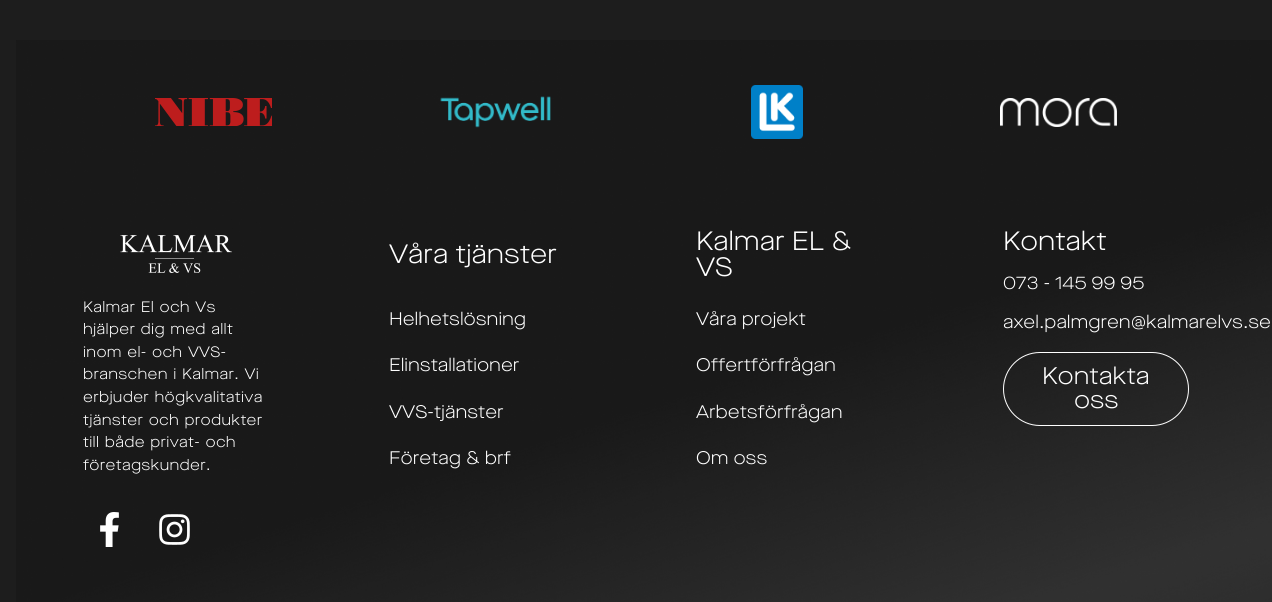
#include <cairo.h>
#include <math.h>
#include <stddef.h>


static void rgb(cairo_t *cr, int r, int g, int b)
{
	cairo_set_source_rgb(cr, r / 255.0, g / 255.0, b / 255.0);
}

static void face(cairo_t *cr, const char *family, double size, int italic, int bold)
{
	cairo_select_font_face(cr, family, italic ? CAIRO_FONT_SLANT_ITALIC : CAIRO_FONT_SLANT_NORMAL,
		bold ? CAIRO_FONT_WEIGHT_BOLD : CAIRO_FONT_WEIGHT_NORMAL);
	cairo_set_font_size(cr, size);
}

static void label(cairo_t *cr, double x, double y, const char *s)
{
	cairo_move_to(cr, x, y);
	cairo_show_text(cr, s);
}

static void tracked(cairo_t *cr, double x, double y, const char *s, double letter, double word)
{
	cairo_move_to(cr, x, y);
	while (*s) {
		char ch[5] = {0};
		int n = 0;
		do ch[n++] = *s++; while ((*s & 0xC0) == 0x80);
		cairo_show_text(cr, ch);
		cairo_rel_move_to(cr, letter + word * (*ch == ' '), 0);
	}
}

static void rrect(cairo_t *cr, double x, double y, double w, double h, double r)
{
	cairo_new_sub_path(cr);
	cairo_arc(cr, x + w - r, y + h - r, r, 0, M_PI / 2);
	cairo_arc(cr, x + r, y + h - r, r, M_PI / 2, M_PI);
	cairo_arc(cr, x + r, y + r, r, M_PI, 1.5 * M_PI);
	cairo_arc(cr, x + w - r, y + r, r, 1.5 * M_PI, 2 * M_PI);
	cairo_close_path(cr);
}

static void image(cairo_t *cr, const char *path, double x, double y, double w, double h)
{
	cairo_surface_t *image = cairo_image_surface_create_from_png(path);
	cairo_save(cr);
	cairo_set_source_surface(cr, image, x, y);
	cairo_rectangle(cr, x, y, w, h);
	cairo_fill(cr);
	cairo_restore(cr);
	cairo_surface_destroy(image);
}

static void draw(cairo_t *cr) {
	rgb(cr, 29, 29, 29);
	cairo_paint(cr);
	image(cr, "image0.png", 16, 40, 1256, 562);
	image(cr, "image1.png", 155, 98, 117, 28);
	image(cr, "image2.png", 440, 96, 111, 32);
	image(cr, "image3.png", 751, 85, 52, 54);
	image(cr, "image4.png", 1000, 98, 117, 29);
	image(cr, "image5.png", 120, 234, 112, 39);
	face(cr, "Maison Neue Light", 15.1, 0, 0);
	rgb(cr, 255, 255, 255);
	tracked(cr, 83, 312, "Kalmar El och Vs", 0.3, 1);
	tracked(cr, 83, 334, "hjälper dig med allt", 0.3, 1);
	tracked(cr, 83, 357, "inom el- och VVS-", 0.3, 1);
	tracked(cr, 83, 379, "branschen i Kalmar. Vi", 0.3, 1);
	tracked(cr, 83, 402, "erbjuder högkvalitativa", 0.3, 1);
	tracked(cr, 83, 425, "tjänster och produkter", 0.3, 1);
	tracked(cr, 83, 447, "till både privat- och", 0.3, 1);
	tracked(cr, 83, 470, "företagskunder.", 0.3, 0);
	image(cr, "image6.png", 100, 512, 19, 35);
	image(cr, "image7.png", 159, 514, 31, 31);
	face(cr, "Maison Neue Light", 26.5, 0, 0);
	label(cr, 389, 263, "Våra tjänster");
	face(cr, "Maison Neue Light", 18.2, 0, 0);
	label(cr, 389, 325, "Helhetslösning");
	label(cr, 389, 371, "Elinstallationer");
	label(cr, 389, 418, "VVS-tjänster");
	label(cr, 389, 464, "Företag & brf");
	face(cr, "Maison Neue Light", 26.5, 0, 0);
	label(cr, 696, 250, "Kalmar EL &");
	label(cr, 696, 276, "VS");
	face(cr, "Maison Neue Light", 18.2, 0, 0);
	label(cr, 696, 325, "Våra projekt");
	label(cr, 696, 371, "Offertförfrågan");
	label(cr, 696, 418, "Arbetsförfrågan");
	label(cr, 696, 464, "Om oss");
	face(cr, "Maison Neue Light", 26.5, 0, 0);
	label(cr, 1003, 250, "Kontakt");
	face(cr, "Maison Neue Light", 18.2, 0, 0);
	label(cr, 1003, 289, "073 - 145 99 95");
	label(cr, 1003, 328, "axel.palmgren@kalmarelvs.se");
	rrect(cr, 1003.5, 352.5, 185, 73, 36.5);
	cairo_set_line_width(cr, 1);
	cairo_stroke(cr);
	face(cr, "Maison Neue Light", 24, 0, 0);
	label(cr, 1042, 384, "Kontakta");
	label(cr, 1074, 408, "oss");
}

int main(void) {
	cairo_surface_t *surface = cairo_image_surface_create(CAIRO_FORMAT_RGB24, 1272, 602);
	cairo_t *cr = cairo_create(surface);
	cairo_font_options_t *options = cairo_font_options_create();
	cairo_font_options_set_hint_metrics(options, CAIRO_HINT_METRICS_OFF);
	cairo_font_options_set_hint_style(options, CAIRO_HINT_STYLE_NONE);
	cairo_set_font_options(cr, options);
	cairo_set_miter_limit(cr, 4);
	draw(cr);
	cairo_surface_write_to_png(surface, "render.png");
	cairo_font_options_destroy(options);
	cairo_destroy(cr);
	cairo_surface_destroy(surface);
	return 0;
}
